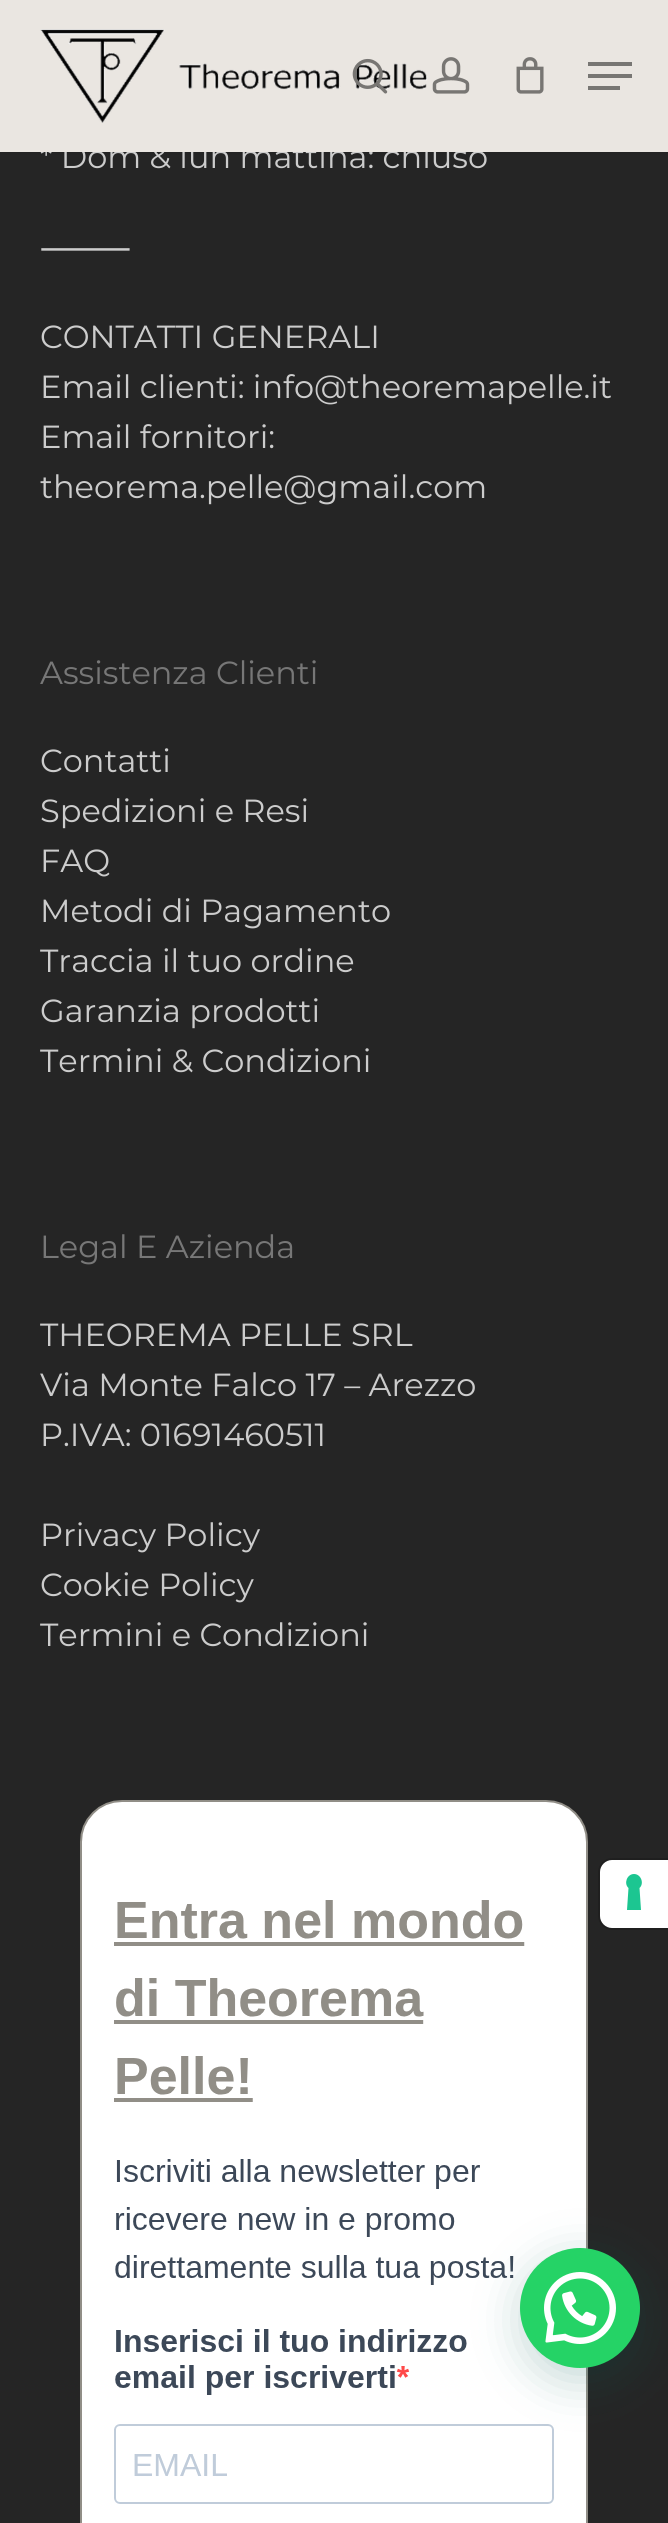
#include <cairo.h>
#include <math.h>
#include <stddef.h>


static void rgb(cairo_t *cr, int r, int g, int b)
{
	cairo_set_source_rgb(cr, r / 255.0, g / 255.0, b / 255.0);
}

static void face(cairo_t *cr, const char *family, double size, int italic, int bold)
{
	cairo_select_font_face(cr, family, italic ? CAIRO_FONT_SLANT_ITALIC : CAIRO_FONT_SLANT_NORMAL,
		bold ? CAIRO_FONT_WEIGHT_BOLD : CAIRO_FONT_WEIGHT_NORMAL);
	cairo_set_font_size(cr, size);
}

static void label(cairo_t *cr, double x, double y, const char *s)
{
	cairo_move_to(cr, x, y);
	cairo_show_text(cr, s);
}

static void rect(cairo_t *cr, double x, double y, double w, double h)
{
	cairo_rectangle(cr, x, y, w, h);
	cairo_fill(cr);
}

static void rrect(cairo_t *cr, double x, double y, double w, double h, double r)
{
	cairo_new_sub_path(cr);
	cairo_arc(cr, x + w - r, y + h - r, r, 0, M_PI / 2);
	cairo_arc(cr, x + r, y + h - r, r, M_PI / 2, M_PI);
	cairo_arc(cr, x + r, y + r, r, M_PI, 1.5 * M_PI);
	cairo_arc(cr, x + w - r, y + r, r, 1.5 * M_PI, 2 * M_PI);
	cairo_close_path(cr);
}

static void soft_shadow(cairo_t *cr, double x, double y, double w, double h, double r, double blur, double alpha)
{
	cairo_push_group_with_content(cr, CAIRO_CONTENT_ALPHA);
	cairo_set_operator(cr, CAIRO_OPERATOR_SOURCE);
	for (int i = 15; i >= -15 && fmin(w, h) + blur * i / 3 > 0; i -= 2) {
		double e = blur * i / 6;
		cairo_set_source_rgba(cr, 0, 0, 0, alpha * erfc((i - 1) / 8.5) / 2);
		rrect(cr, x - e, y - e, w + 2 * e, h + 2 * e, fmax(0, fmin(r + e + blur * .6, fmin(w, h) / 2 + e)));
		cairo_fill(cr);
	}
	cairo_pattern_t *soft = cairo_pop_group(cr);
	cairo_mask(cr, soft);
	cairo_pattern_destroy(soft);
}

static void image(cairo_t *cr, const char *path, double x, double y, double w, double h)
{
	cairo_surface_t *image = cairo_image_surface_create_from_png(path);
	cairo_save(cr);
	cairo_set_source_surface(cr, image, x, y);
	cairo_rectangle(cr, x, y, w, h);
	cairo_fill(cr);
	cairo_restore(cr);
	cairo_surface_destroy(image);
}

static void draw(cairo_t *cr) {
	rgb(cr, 37, 37, 37);
	cairo_paint(cr);
	rgb(cr, 0, 0, 0);
	soft_shadow(cr, 0, 0, 668, 152, 0, 2, 0.14);
	face(cr, "Montserrat", 32, 0, 0);
	rgb(cr, 204, 204, 204);
	label(cr, 40, 168, "* Dom & lun mattina: chiuso");
	rgb(cr, 234, 230, 225);
	rect(cr, 0, 0, 668, 152);
	image(cr, "image0.png", 40, 29, 388, 94);
	image(cr, "image1.png", 352, 58, 36, 36);
	image(cr, "image2.png", 432, 57, 38, 37);
	image(cr, "image3.png", 516, 57, 28, 37);
	rgb(cr, 120, 118, 115);
	rect(cr, 588, 62, 44, 4);
	rect(cr, 588, 86, 32, 4);
	rect(cr, 588, 74, 44, 4);
	face(cr, "Noto Sans", 32, 0, 0);
	rgb(cr, 204, 204, 204);
	label(cr, 40, 258, "⸻");
	face(cr, "Montserrat", 32, 0, 0);
	label(cr, 40, 348, "CONTATTI GENERALI");
	label(cr, 40, 398, "Email clienti: info@theoremapelle.it");
	label(cr, 40, 448, "Email fornitori:");
	label(cr, 40, 498, "theorema.pelle@gmail.com");
	rgb(cr, 119, 119, 119);
	label(cr, 40, 684, "Assistenza Clienti");
	rgb(cr, 204, 204, 204);
	label(cr, 40, 772, "Contatti");
	label(cr, 40, 822, "Spedizioni e Resi");
	label(cr, 40, 872, "FAQ");
	label(cr, 40, 922, "Metodi di Pagamento");
	label(cr, 40, 972, "Traccia il tuo ordine");
	label(cr, 40, 1022, "Garanzia prodotti");
	label(cr, 40, 1072, "Termini & Condizioni");
	rgb(cr, 119, 119, 119);
	label(cr, 40, 1258, "Legal E Azienda");
	rgb(cr, 204, 204, 204);
	label(cr, 40, 1346, "THEOREMA PELLE SRL");
	label(cr, 40, 1396, "Via Monte Falco 17 – Arezzo");
	label(cr, 40, 1446, "P.IVA: 01691460511");
	label(cr, 40, 1546, "Privacy Policy");
	label(cr, 40, 1596, "Cookie Policy");
	label(cr, 40, 1646, "Termini e Condizioni");
	image(cr, "image4.png", 80, 1800, 508, 723);
	cairo_new_path(cr);
	cairo_move_to(cr, 612, 1859);
	cairo_line_to(cr, 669, 1859);
	cairo_line_to(cr, 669, 1929);
	cairo_line_to(cr, 612, 1929);
	cairo_curve_to(cr, 605, 1929, 599, 1923, 599, 1916);
	cairo_line_to(cr, 599, 1872);
	cairo_curve_to(cr, 599, 1865, 605, 1859, 612, 1859);
	cairo_close_path(cr);
	rgb(cr, 31, 31, 31);
	cairo_stroke(cr);
	rgb(cr, 255, 255, 255);
	cairo_new_path(cr);
	cairo_move_to(cr, 612, 1860);
	cairo_line_to(cr, 668, 1860);
	cairo_line_to(cr, 668, 1928);
	cairo_line_to(cr, 612, 1928);
	cairo_curve_to(cr, 605.5, 1928, 600, 1922.5, 600, 1916);
	cairo_line_to(cr, 600, 1872);
	cairo_curve_to(cr, 600, 1865.5, 605.5, 1860, 612, 1860);
	cairo_close_path(cr);
	cairo_fill(cr);
	rgb(cr, 28, 198, 145);
	cairo_set_fill_rule(cr, CAIRO_FILL_RULE_EVEN_ODD);
	cairo_new_path(cr);
	cairo_move_to(cr, 634, 1874);
	cairo_curve_to(cr, 641, 1874, 644.5, 1883.5, 639.5, 1888);
	cairo_line_to(cr, 641, 1910);
	cairo_line_to(cr, 627, 1910);
	cairo_line_to(cr, 628.5, 1888);
	cairo_curve_to(cr, 623.5, 1883.5, 627, 1874, 634, 1874);
	cairo_close_path(cr);
	cairo_fill(cr);
	rgb(cr, 7, 94, 84);
	soft_shadow(cr, 522, 2260, 120, 120, 60, 24, 0.24);
	rgb(cr, 37, 211, 102);
	cairo_arc(cr, 580, 2308, 60, 0, 2 * M_PI);
	cairo_fill(cr);
	image(cr, "image5.png", 544, 2272, 72, 72);
}

int main(void) {
	cairo_surface_t *surface = cairo_image_surface_create(CAIRO_FORMAT_RGB24, 668, 2523);
	cairo_t *cr = cairo_create(surface);
	cairo_font_options_t *options = cairo_font_options_create();
	cairo_font_options_set_hint_metrics(options, CAIRO_HINT_METRICS_OFF);
	cairo_font_options_set_hint_style(options, CAIRO_HINT_STYLE_NONE);
	cairo_set_font_options(cr, options);
	cairo_set_miter_limit(cr, 4);
	draw(cr);
	cairo_surface_write_to_png(surface, "render.png");
	cairo_font_options_destroy(options);
	cairo_destroy(cr);
	cairo_surface_destroy(surface);
	return 0;
}
